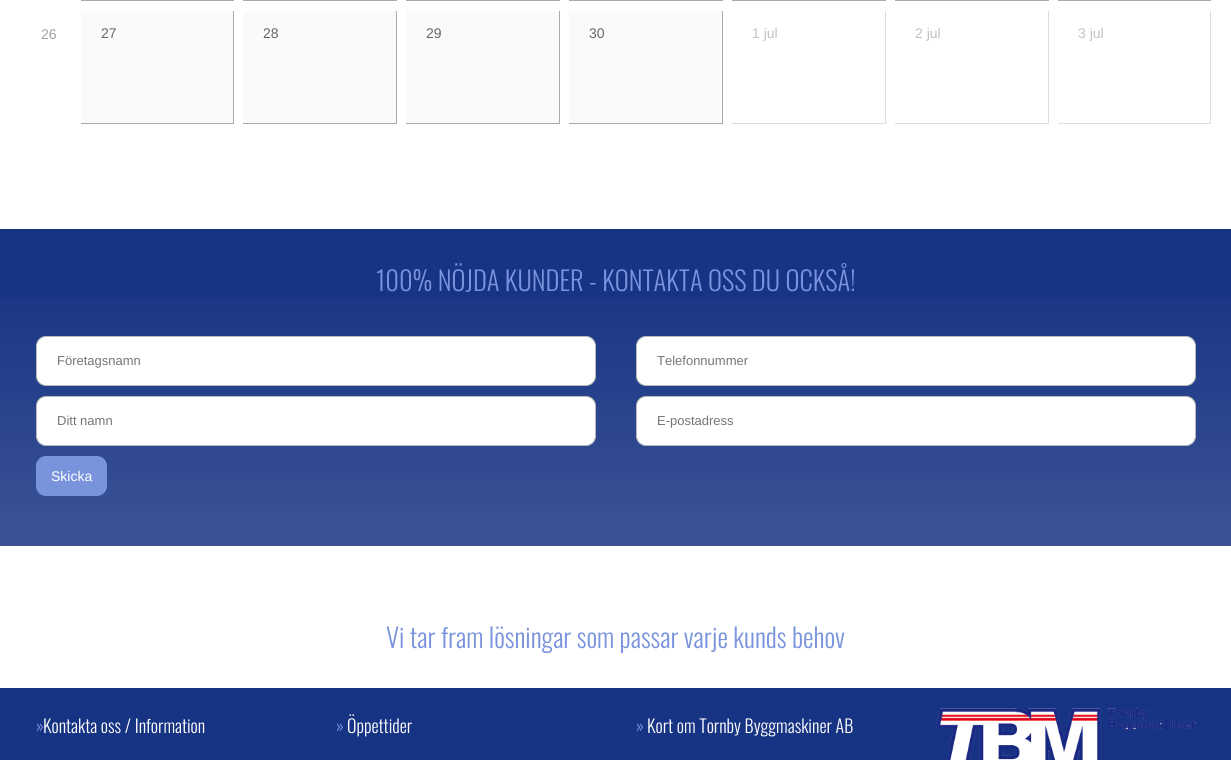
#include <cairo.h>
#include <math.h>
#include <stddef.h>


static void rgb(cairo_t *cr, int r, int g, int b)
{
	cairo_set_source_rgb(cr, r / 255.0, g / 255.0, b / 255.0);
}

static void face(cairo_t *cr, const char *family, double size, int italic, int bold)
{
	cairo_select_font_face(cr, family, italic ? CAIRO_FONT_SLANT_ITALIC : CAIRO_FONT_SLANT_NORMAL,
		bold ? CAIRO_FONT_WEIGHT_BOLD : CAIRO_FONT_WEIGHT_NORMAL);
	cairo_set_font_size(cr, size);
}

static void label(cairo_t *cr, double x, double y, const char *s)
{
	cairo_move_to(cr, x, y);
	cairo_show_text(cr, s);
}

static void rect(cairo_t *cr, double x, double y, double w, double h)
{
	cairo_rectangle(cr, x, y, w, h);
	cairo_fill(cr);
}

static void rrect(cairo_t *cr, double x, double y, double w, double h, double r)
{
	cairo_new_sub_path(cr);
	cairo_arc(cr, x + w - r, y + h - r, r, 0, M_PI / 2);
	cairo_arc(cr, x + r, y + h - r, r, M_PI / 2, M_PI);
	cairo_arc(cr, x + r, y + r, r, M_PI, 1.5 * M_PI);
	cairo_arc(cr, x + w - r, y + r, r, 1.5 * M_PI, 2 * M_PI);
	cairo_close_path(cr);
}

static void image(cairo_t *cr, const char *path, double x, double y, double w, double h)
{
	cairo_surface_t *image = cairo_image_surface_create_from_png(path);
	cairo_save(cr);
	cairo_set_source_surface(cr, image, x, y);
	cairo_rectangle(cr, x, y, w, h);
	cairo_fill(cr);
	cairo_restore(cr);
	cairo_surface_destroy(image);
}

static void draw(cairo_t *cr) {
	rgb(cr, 255, 255, 255);
	cairo_paint(cr);
	rgb(cr, 170, 170, 170);
	rect(cr, 81, 0, 153, 1);
	rect(cr, 243, 0, 154, 1);
	rect(cr, 406, 0, 154, 1);
	rect(cr, 569, 0, 154, 1);
	rect(cr, 732, 0, 154, 1);
	rect(cr, 895, 0, 154, 1);
	rect(cr, 1058, 0, 153, 1);
	face(cr, "Liberation Sans", 14, 0, 0);
	rgb(cr, 163, 163, 163);
	label(cr, 41, 39, "26");
	rgb(cr, 250, 250, 250);
	rect(cr, 81, 11, 152, 112);
	rgb(cr, 170, 170, 170);
	rect(cr, 233, 11, 1, 113);
	rect(cr, 81, 123, 153, 1);
	rgb(cr, 102, 102, 102);
	label(cr, 101, 38, "27");
	rgb(cr, 250, 250, 250);
	rect(cr, 243, 11, 153, 112);
	rgb(cr, 170, 170, 170);
	rect(cr, 396, 11, 1, 113);
	rect(cr, 243, 123, 154, 1);
	rgb(cr, 102, 102, 102);
	label(cr, 263, 38, "28");
	rgb(cr, 250, 250, 250);
	rect(cr, 406, 11, 153, 112);
	rgb(cr, 170, 170, 170);
	rect(cr, 559, 11, 1, 113);
	rect(cr, 406, 123, 154, 1);
	rgb(cr, 102, 102, 102);
	label(cr, 426, 38, "29");
	rgb(cr, 250, 250, 250);
	rect(cr, 569, 11, 153, 112);
	rgb(cr, 170, 170, 170);
	rect(cr, 722, 11, 1, 113);
	rect(cr, 569, 123, 154, 1);
	rgb(cr, 102, 102, 102);
	label(cr, 589, 38, "30");
	rgb(cr, 221, 221, 221);
	rect(cr, 885, 11, 1, 113);
	rect(cr, 732, 123, 154, 1);
	rgb(cr, 194, 194, 194);
	label(cr, 752, 38, "1 jul");
	rgb(cr, 221, 221, 221);
	rect(cr, 1048, 11, 1, 113);
	rect(cr, 895, 123, 154, 1);
	rgb(cr, 194, 194, 194);
	label(cr, 915, 38, "2 jul");
	rgb(cr, 221, 221, 221);
	rect(cr, 1210, 11, 1, 113);
	rect(cr, 1058, 123, 153, 1);
	rgb(cr, 194, 194, 194);
	label(cr, 1078, 38, "3 jul");
	rgb(cr, 23, 51, 131);
	rect(cr, 0, 229, 1231, 317);
	image(cr, "image0.png", 0, 297, 1231, 249);
	face(cr, "Oswald Light", 26.6, 0, 0);
	rgb(cr, 121, 147, 221);
	label(cr, 376, 291, "100% NÖJDA KUNDER - KONTAKTA OSS DU OCKSÅ!");
	rgb(cr, 255, 255, 255);
	rrect(cr, 36.5, 336.5, 559, 49, 9.5);
	cairo_fill_preserve(cr);
	rgb(cr, 186, 186, 186);
	cairo_set_line_width(cr, 1);
	cairo_stroke(cr);
	face(cr, "Liberation Sans", 13, 0, 0);
	rgb(cr, 117, 117, 117);
	label(cr, 57, 365, "Företagsnamn");
	rgb(cr, 255, 255, 255);
	rrect(cr, 36.5, 396.5, 559, 49, 9.5);
	cairo_fill_preserve(cr);
	rgb(cr, 186, 186, 186);
	cairo_stroke(cr);
	rgb(cr, 117, 117, 117);
	label(cr, 57, 425, "Ditt namn");
	rgb(cr, 255, 255, 255);
	rrect(cr, 636.5, 336.5, 559, 49, 9.5);
	cairo_fill_preserve(cr);
	rgb(cr, 186, 186, 186);
	cairo_stroke(cr);
	rgb(cr, 117, 117, 117);
	label(cr, 657, 365, "Telefonnummer");
	rgb(cr, 255, 255, 255);
	rrect(cr, 636.5, 396.5, 559, 49, 9.5);
	cairo_fill_preserve(cr);
	rgb(cr, 186, 186, 186);
	cairo_stroke(cr);
	rgb(cr, 117, 117, 117);
	label(cr, 657, 425, "E-postadress");
	rgb(cr, 121, 147, 221);
	rrect(cr, 36, 456, 71, 40, 10);
	cairo_fill(cr);
	face(cr, "Liberation Sans", 14, 0, 0);
	rgb(cr, 255, 255, 255);
	label(cr, 51, 481, "Skicka");
	face(cr, "Oswald Light", 26.6, 0, 0);
	rgb(cr, 121, 147, 221);
	label(cr, 386, 648, "Vi tar fram lösningar som passar varje kunds behov");
	rgb(cr, 23, 51, 131);
	rect(cr, 0, 688, 1231, 72);
	face(cr, "Oswald Light", 18, 0, 0);
	rgb(cr, 121, 147, 221);
	label(cr, 36, 733, "»");
	rgb(cr, 255, 255, 255);
	label(cr, 43, 733, "Kontakta oss / Information");
	rgb(cr, 121, 147, 221);
	label(cr, 336, 733, "»");
	rgb(cr, 255, 255, 255);
	label(cr, 347, 733, "Öppettider");
	rgb(cr, 121, 147, 221);
	label(cr, 636, 733, "»");
	rgb(cr, 255, 255, 255);
	label(cr, 647, 733, "Kort om Tornby Byggmaskiner AB");
	image(cr, "image1.png", 936, 708, 260, 52);
}

int main(void) {
	cairo_surface_t *surface = cairo_image_surface_create(CAIRO_FORMAT_RGB24, 1231, 760);
	cairo_t *cr = cairo_create(surface);
	cairo_font_options_t *options = cairo_font_options_create();
	cairo_font_options_set_hint_metrics(options, CAIRO_HINT_METRICS_OFF);
	cairo_font_options_set_hint_style(options, CAIRO_HINT_STYLE_NONE);
	cairo_set_font_options(cr, options);
	cairo_set_miter_limit(cr, 4);
	draw(cr);
	cairo_surface_write_to_png(surface, "render.png");
	cairo_font_options_destroy(options);
	cairo_destroy(cr);
	cairo_surface_destroy(surface);
	return 0;
}
